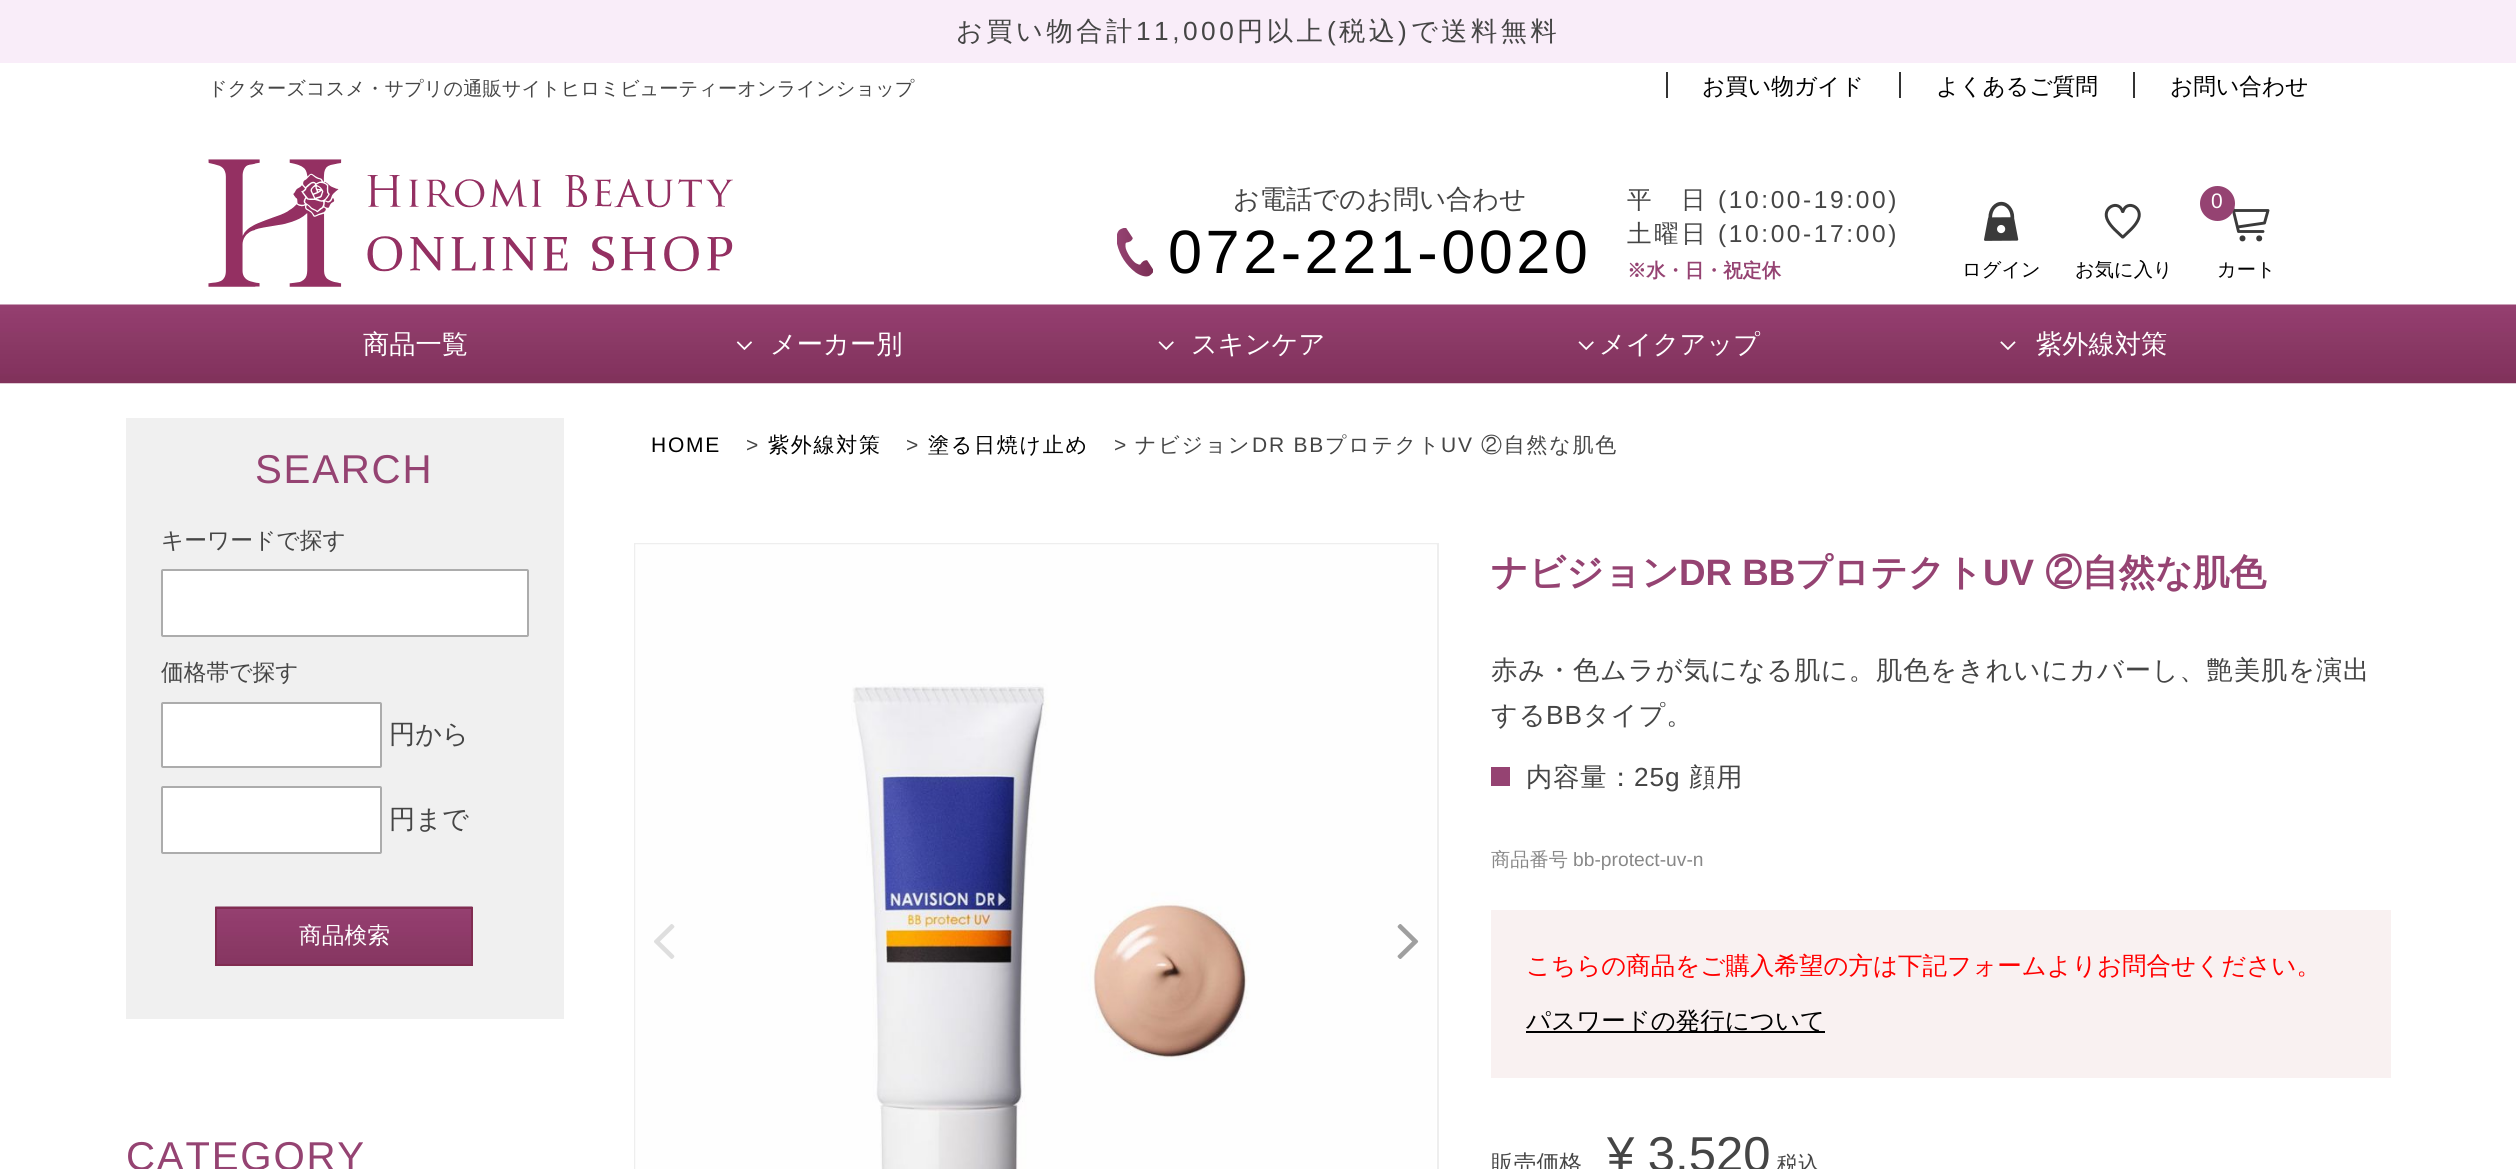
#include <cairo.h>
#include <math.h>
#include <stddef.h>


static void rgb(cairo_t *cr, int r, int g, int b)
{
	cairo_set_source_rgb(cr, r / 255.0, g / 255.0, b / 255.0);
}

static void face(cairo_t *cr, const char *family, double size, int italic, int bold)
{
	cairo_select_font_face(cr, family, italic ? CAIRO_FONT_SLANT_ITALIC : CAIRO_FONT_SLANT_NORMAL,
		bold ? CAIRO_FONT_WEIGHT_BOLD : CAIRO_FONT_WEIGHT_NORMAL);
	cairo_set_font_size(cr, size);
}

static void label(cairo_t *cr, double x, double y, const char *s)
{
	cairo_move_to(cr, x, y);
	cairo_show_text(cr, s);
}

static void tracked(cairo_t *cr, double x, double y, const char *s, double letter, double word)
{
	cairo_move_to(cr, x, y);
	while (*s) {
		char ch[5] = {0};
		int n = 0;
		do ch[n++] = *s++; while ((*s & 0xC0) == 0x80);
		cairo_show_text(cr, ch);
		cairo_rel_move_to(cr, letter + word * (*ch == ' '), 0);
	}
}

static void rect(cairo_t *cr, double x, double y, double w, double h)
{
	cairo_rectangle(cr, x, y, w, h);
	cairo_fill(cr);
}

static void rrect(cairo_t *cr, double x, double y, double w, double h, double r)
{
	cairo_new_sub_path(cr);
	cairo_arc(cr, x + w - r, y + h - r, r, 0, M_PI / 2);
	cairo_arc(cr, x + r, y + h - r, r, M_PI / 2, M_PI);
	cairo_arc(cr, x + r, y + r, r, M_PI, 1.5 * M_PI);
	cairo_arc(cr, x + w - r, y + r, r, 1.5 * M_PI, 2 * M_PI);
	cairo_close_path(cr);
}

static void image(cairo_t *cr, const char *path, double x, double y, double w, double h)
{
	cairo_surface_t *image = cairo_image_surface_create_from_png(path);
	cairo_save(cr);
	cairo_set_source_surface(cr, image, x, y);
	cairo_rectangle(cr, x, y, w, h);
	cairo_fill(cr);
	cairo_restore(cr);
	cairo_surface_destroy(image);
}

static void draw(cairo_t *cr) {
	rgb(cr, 255, 255, 255);
	cairo_paint(cr);
	rgb(cr, 249, 237, 249);
	rect(cr, 0, 0, 2516, 63);
	face(cr, "WenQuanYi Zen Hei Medium", 26.25, 0, 0);
	rgb(cr, 69, 69, 69);
	tracked(cr, 956, 40, "お買い物合計", 3.5, 0);
	face(cr, "Liberation Sans", 26.25, 0, 0);
	tracked(cr, 1136, 40, "11,000", 3.5, 0);
	face(cr, "WenQuanYi Zen Hei Medium", 26.25, 0, 0);
	tracked(cr, 1237, 40, "円以上", 3.5, 0);
	face(cr, "Liberation Sans", 26.25, 0, 0);
	tracked(cr, 1327, 40, "(", 3.5, 0);
	face(cr, "WenQuanYi Zen Hei Medium", 26.25, 0, 0);
	tracked(cr, 1339, 40, "税込", 3.5, 0);
	face(cr, "Liberation Sans", 26.25, 0, 0);
	tracked(cr, 1398, 40, ")", 3.5, 0);
	face(cr, "WenQuanYi Zen Hei Medium", 26.25, 0, 0);
	tracked(cr, 1411, 40, "で送料無料", 3.5, 0);
	face(cr, "WenQuanYi Zen Hei Medium", 19.25, 0, 0);
	label(cr, 208, 95, "ドクターズコスメ・サプリの通販サイトヒロミビューティーオンラインショップ");
	rgb(cr, 51, 51, 51);
	rect(cr, 1666, 72, 2, 26);
	face(cr, "WenQuanYi Zen Hei Medium", 22.75, 0, 0);
	rgb(cr, 0, 0, 0);
	label(cr, 1702, 94, "お買い物ガイド");
	rgb(cr, 51, 51, 51);
	rect(cr, 1899, 72, 2, 26);
	rgb(cr, 0, 0, 0);
	label(cr, 1936, 94, "よくあるご質問");
	rgb(cr, 51, 51, 51);
	rect(cr, 2133, 72, 2, 26);
	rgb(cr, 0, 0, 0);
	label(cr, 2170, 94, "お問い合わせ");
	image(cr, "image0.png", 208, 159, 525, 128);
	face(cr, "WenQuanYi Zen Hei Medium", 26.25, 0, 0);
	rgb(cr, 69, 69, 69);
	label(cr, 1233, 208, "お電話でのお問い合わせ");
	image(cr, "image1.png", 1117, 228, 36, 49);
	face(cr, "Liberation Sans", 61.25, 0, 0);
	rgb(cr, 0, 0, 0);
	tracked(cr, 1168, 273, "072-221-0020", 3.5, 0);
	face(cr, "WenQuanYi Zen Hei Medium", 24.5, 0, 0);
	rgb(cr, 69, 69, 69);
	tracked(cr, 1627, 208, "平", 2.6, 0);
	tracked(cr, 1681, 208, "日", 2.6, 0);
	face(cr, "Liberation Sans", 24.5, 0, 0);
	tracked(cr, 1718, 208, "(10:00-19:00)", 2.6, 0);
	face(cr, "WenQuanYi Zen Hei Medium", 24.5, 0, 0);
	tracked(cr, 1627, 242, "土曜日", 2.6, 0);
	face(cr, "Liberation Sans", 24.5, 0, 0);
	tracked(cr, 1718, 242, "(10:00-17:00)", 2.6, 0);
	face(cr, "WenQuanYi Zen Hei", 19.25, 0, 1);
	rgb(cr, 149, 67, 114);
	label(cr, 1627, 277, "※水・日・祝定休");
	image(cr, "image2.png", 1984, 201, 35, 40);
	face(cr, "WenQuanYi Zen Hei Medium", 19.25, 0, 0);
	rgb(cr, 0, 0, 0);
	label(cr, 1962, 276, "ログイン");
	cairo_new_path(cr);
	cairo_move_to(cr, 2123, 211.5);
	cairo_curve_to(cr, 2126.5, 199, 2145, 207.5, 2137.5, 221);
	cairo_curve_to(cr, 2134, 227.5, 2128, 232, 2123, 237);
	cairo_line_to(cr, 2122.5, 237);
	cairo_curve_to(cr, 2117.5, 232, 2111.5, 227.5, 2108, 221);
	cairo_curve_to(cr, 2100.5, 207.5, 2119, 199, 2122.5, 211.5);
	cairo_close_path(cr);
	rgb(cr, 58, 58, 58);
	cairo_set_line_width(cr, 3);
	cairo_set_line_cap(cr, CAIRO_LINE_CAP_ROUND);
	cairo_set_line_join(cr, CAIRO_LINE_JOIN_ROUND);
	cairo_stroke(cr);
	rgb(cr, 0, 0, 0);
	label(cr, 2075, 276, "お気に入り");
	cairo_new_path(cr);
	cairo_move_to(cr, 2226, 205);
	cairo_line_to(cr, 2232, 205);
	cairo_line_to(cr, 2238.5, 231.5);
	cairo_line_to(cr, 2263, 231.5);
	cairo_move_to(cr, 2233.5, 210.5);
	cairo_line_to(cr, 2268, 210.5);
	cairo_line_to(cr, 2264.5, 223);
	cairo_line_to(cr, 2237.5, 227);
	rgb(cr, 58, 58, 58);
	cairo_set_line_width(cr, 2.9);
	cairo_stroke(cr);
	rgb(cr, 149, 67, 114);
	cairo_arc(cr, 2217.5, 203.5, 17.5, 0, 2 * M_PI);
	cairo_fill(cr);
	face(cr, "Liberation Sans", 21, 0, 0);
	rgb(cr, 255, 255, 255);
	label(cr, 2211, 208, "0");
	rgb(cr, 58, 58, 58);
	cairo_new_path(cr);
	cairo_arc(cr, 2242.5, 238.4, 3, 0, 2 * M_PI);
	cairo_fill(cr);
	cairo_arc(cr, 2259.2, 238.4, 3, 0, 2 * M_PI);
	cairo_fill(cr);
	face(cr, "WenQuanYi Zen Hei Medium", 19.25, 0, 0);
	rgb(cr, 0, 0, 0);
	label(cr, 2217, 276, "カート");
	image(cr, "image3.png", 0, 304, 2516, 80);
	face(cr, "WenQuanYi Zen Hei Medium", 26.25, 0, 0);
	rgb(cr, 255, 255, 255);
	label(cr, 363, 353, "商品一覧");
	image(cr, "image4.png", 736, 341, 16, 9);
	label(cr, 770, 353, "メーカー別");
	image(cr, "image5.png", 1158, 341, 16, 9);
	label(cr, 1191, 353, "スキンケア");
	image(cr, "image5.png", 1578, 341, 16, 9);
	label(cr, 1599, 353, "メイクアップ");
	image(cr, "image6.png", 2000, 341, 16, 9);
	label(cr, 2036, 353, "紫外線対策");
	rgb(cr, 240, 240, 240);
	rect(cr, 126, 418, 438, 601);
	face(cr, "Liberation Sans", 40.25, 0, 0);
	rgb(cr, 149, 67, 114);
	tracked(cr, 255, 483, "SEARCH", 1.75, 0);
	face(cr, "WenQuanYi Zen Hei Medium", 22.75, 0, 0);
	rgb(cr, 69, 69, 69);
	label(cr, 161, 548, "キーワードで探す");
	rgb(cr, 255, 255, 255);
	rrect(cr, 162, 570, 366, 66, 1);
	cairo_fill_preserve(cr);
	rgb(cr, 172, 172, 172);
	cairo_set_line_width(cr, 2);
	cairo_set_line_cap(cr, CAIRO_LINE_CAP_BUTT);
	cairo_set_line_join(cr, CAIRO_LINE_JOIN_MITER);
	cairo_stroke(cr);
	rgb(cr, 69, 69, 69);
	label(cr, 161, 680, "価格帯で探す");
	rgb(cr, 255, 255, 255);
	rrect(cr, 162, 703, 219, 64, 1);
	cairo_fill_preserve(cr);
	rgb(cr, 172, 172, 172);
	cairo_stroke(cr);
	face(cr, "WenQuanYi Zen Hei Medium", 26.25, 0, 0);
	rgb(cr, 69, 69, 69);
	label(cr, 389, 743, "円から");
	rgb(cr, 255, 255, 255);
	rrect(cr, 162, 787, 219, 66, 1);
	cairo_fill_preserve(cr);
	rgb(cr, 172, 172, 172);
	cairo_stroke(cr);
	rgb(cr, 69, 69, 69);
	label(cr, 389, 828, "円まで");
	image(cr, "image7.png", 215, 906, 258, 58);
	cairo_rectangle(cr, 216, 908, 256, 57);
	rgb(cr, 129, 44, 81);
	cairo_stroke(cr);
	face(cr, "WenQuanYi Zen Hei Medium", 22.75, 0, 0);
	rgb(cr, 255, 255, 255);
	label(cr, 299, 943, "商品検索");
	face(cr, "Liberation Sans", 40.25, 0, 0);
	rgb(cr, 149, 67, 114);
	tracked(cr, 126, 1170, "CATEGORY", 1.75, 0);
	face(cr, "Liberation Sans", 21, 0, 0);
	rgb(cr, 0, 0, 0);
	tracked(cr, 651, 452, "HOME", 1.75, 0);
	rgb(cr, 69, 69, 69);
	tracked(cr, 746, 452, ">", 1.75, 0);
	face(cr, "WenQuanYi Zen Hei Medium", 21, 0, 0);
	rgb(cr, 0, 0, 0);
	tracked(cr, 768, 452, "紫外線対策", 1.75, 0);
	face(cr, "Liberation Sans", 21, 0, 0);
	rgb(cr, 69, 69, 69);
	tracked(cr, 906, 452, ">", 1.75, 0);
	face(cr, "WenQuanYi Zen Hei Medium", 21, 0, 0);
	rgb(cr, 0, 0, 0);
	tracked(cr, 928, 452, "塗る日焼け止め", 1.75, 0);
	face(cr, "Liberation Sans", 21, 0, 0);
	rgb(cr, 69, 69, 69);
	tracked(cr, 1114, 452, ">", 1.75, 0);
	face(cr, "WenQuanYi Zen Hei Medium", 21, 0, 0);
	tracked(cr, 1135, 452, "ナビジョン", 1.75, 0);
	face(cr, "Liberation Sans", 21, 0, 0);
	tracked(cr, 1252, 452, "DR BB", 1.75, 0);
	face(cr, "WenQuanYi Zen Hei Medium", 21, 0, 0);
	tracked(cr, 1325, 452, "プロテクト", 1.75, 0);
	face(cr, "Liberation Sans", 21, 0, 0);
	tracked(cr, 1441, 452, "UV", 1.75, 0);
	face(cr, "WenQuanYi Zen Hei Medium", 21, 0, 0);
	tracked(cr, 1481, 452, "②自然な肌色", 1.75, 0);
	cairo_rectangle(cr, 635, 544, 803, 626);
	rgb(cr, 238, 238, 238);
	cairo_stroke(cr);
	image(cr, "image8.png", 635, 544, 802, 625);
	image(cr, "image9.png", 654, 924, 21, 35);
	image(cr, "image10.png", 1397, 924, 22, 35);
	face(cr, "WenQuanYi Zen Hei", 36.75, 0, 1);
	rgb(cr, 149, 67, 114);
	label(cr, 1491, 585, "ナビジョン");
	face(cr, "Liberation Sans", 36.75, 0, 1);
	label(cr, 1679, 585, "DR BB");
	face(cr, "WenQuanYi Zen Hei", 36.75, 0, 1);
	label(cr, 1795, 585, "プロテクト");
	face(cr, "Liberation Sans", 36.75, 0, 1);
	label(cr, 1983, 585, "UV");
	face(cr, "WenQuanYi Zen Hei", 36.75, 0, 1);
	label(cr, 2045, 585, "②自然な肌色");
	face(cr, "WenQuanYi Zen Hei Medium", 26.25, 0, 0);
	rgb(cr, 69, 69, 69);
	tracked(cr, 1491, 679, "赤み・色ムラが気になる肌に。肌色をきれいにカバーし、艶美肌を演出", 0.9, 0);
	tracked(cr, 1491, 724, "する", 0.9, 0);
	face(cr, "Liberation Sans", 26.25, 0, 0);
	tracked(cr, 1546, 724, "BB", 0.9, 0);
	face(cr, "WenQuanYi Zen Hei Medium", 26.25, 0, 0);
	tracked(cr, 1583, 724, "タイプ。", 0.9, 0);
	rgb(cr, 149, 67, 114);
	rect(cr, 1491, 767, 19, 19);
	rgb(cr, 69, 69, 69);
	tracked(cr, 1526, 786, "内容量：", 0.9, 0);
	face(cr, "Liberation Sans", 26.25, 0, 0);
	tracked(cr, 1634, 786, "25g", 0.9, 0);
	face(cr, "WenQuanYi Zen Hei Medium", 26.25, 0, 0);
	tracked(cr, 1689, 786, "顔用", 0.9, 0);
	face(cr, "WenQuanYi Zen Hei Medium", 19.25, 0, 0);
	rgb(cr, 136, 136, 136);
	label(cr, 1491, 866, "商品番号");
	face(cr, "Liberation Sans", 19.25, 0, 0);
	label(cr, 1573, 866, "bb-protect-uv-n");
	rgb(cr, 249, 241, 241);
	rect(cr, 1491, 910, 900, 168);
	face(cr, "WenQuanYi Zen Hei Medium", 24.5, 0, 0);
	rgb(cr, 255, 0, 0);
	label(cr, 1526, 974, "こちらの商品をご購入希望の方は下記フォームよりお問合せください。");
	rgb(cr, 0, 0, 0);
	rect(cr, 1526, 1031, 299, 2);
	label(cr, 1526, 1029, "パスワードの発行について");
	face(cr, "WenQuanYi Zen Hei Medium", 22.75, 0, 0);
	rgb(cr, 69, 69, 69);
	label(cr, 1491, 1171, "販売価格");
	face(cr, "Liberation Sans", 49, 0, 0);
	label(cr, 1607, 1171, "¥ 3,520");
	face(cr, "WenQuanYi Zen Hei Medium", 21, 0, 0);
	label(cr, 1777, 1171, "税込");
}

int main(void) {
	cairo_surface_t *surface = cairo_image_surface_create(CAIRO_FORMAT_RGB24, 2516, 1169);
	cairo_t *cr = cairo_create(surface);
	cairo_font_options_t *options = cairo_font_options_create();
	cairo_font_options_set_hint_metrics(options, CAIRO_HINT_METRICS_OFF);
	cairo_font_options_set_hint_style(options, CAIRO_HINT_STYLE_NONE);
	cairo_set_font_options(cr, options);
	cairo_set_miter_limit(cr, 4);
	draw(cr);
	cairo_surface_write_to_png(surface, "render.png");
	cairo_font_options_destroy(options);
	cairo_destroy(cr);
	cairo_surface_destroy(surface);
	return 0;
}
